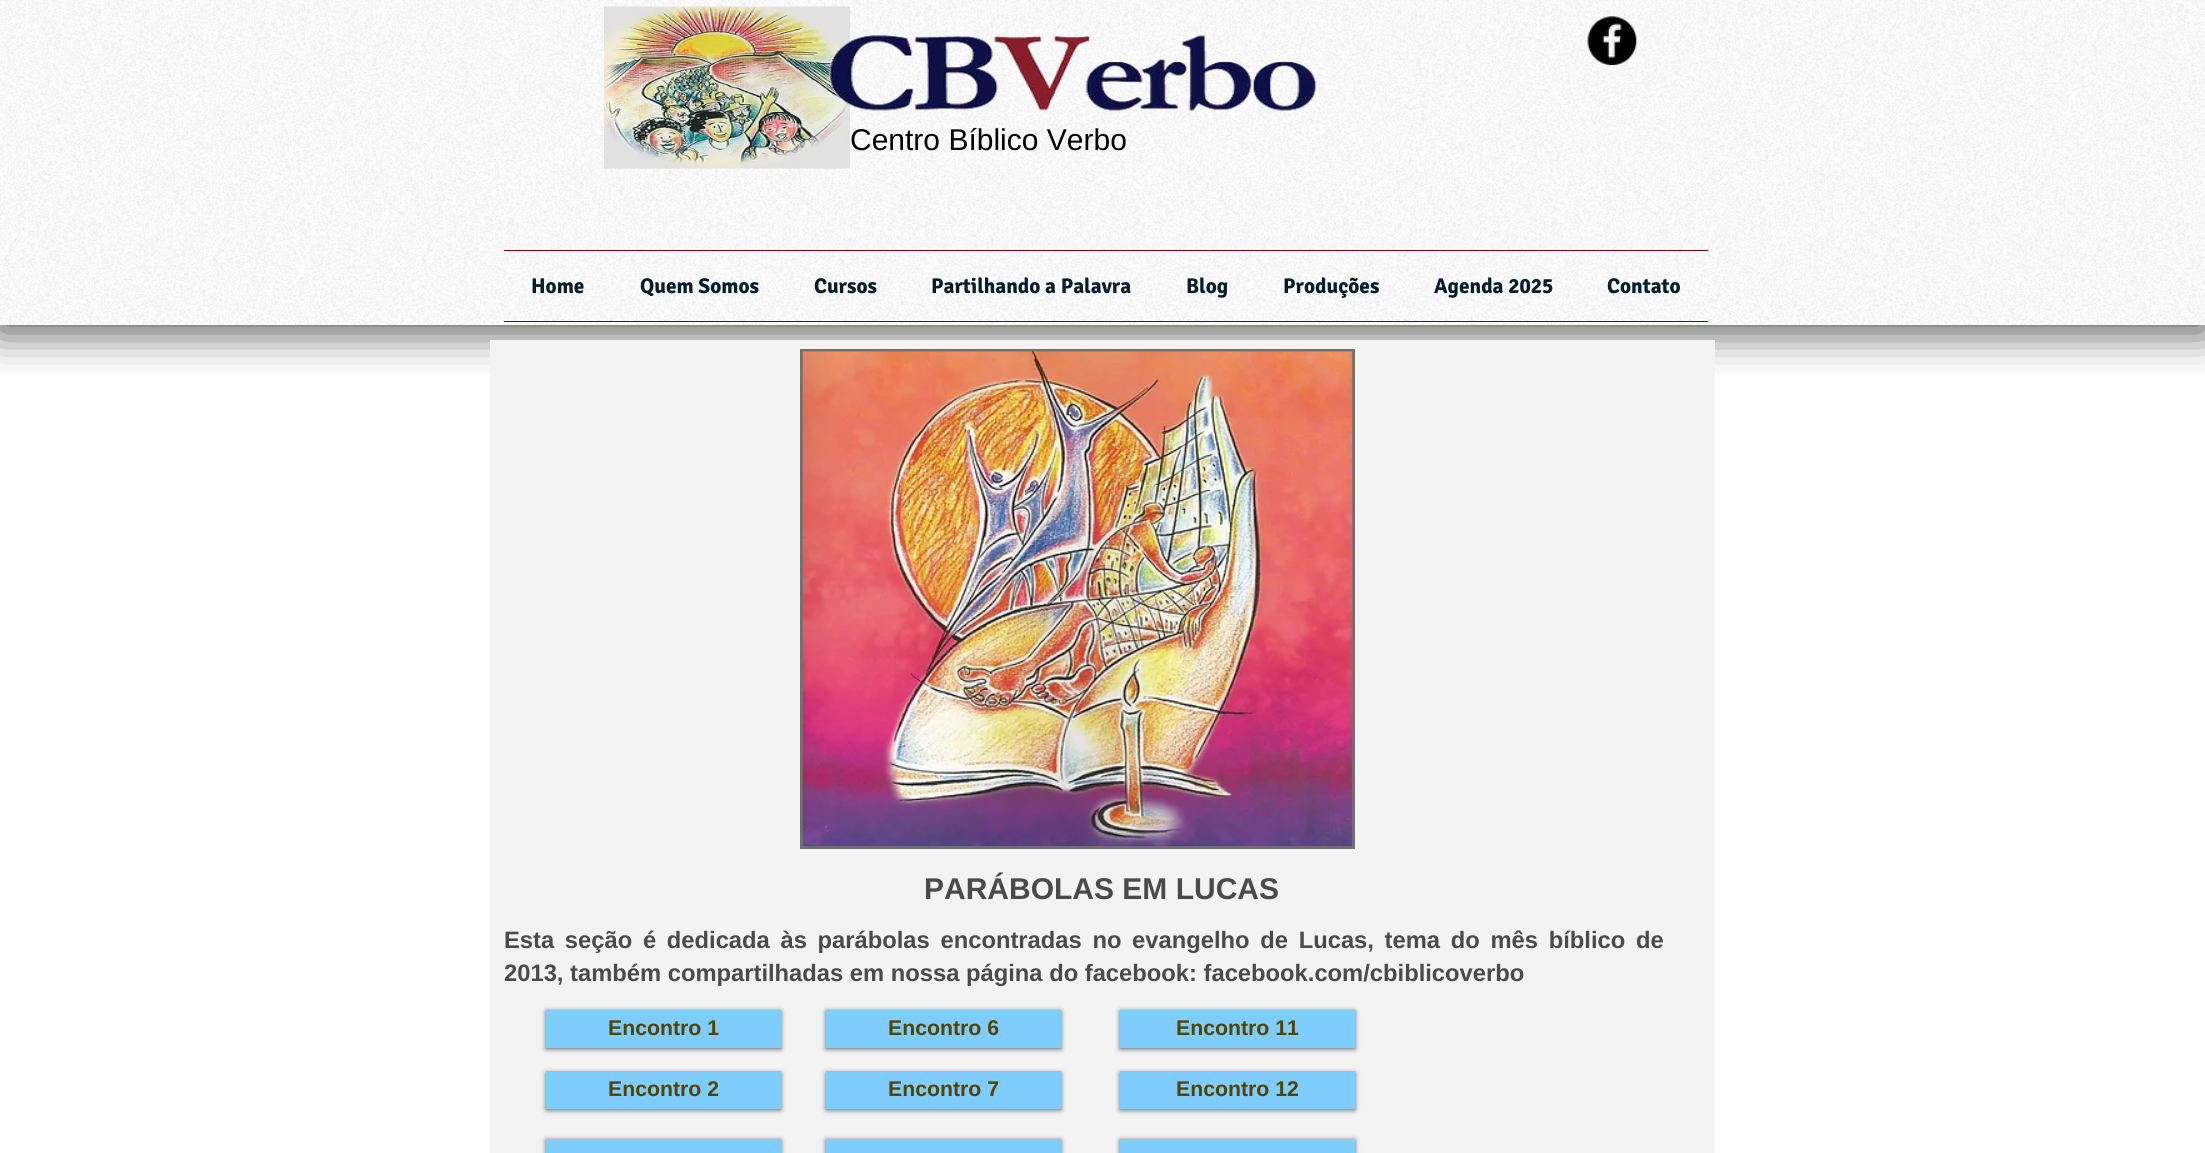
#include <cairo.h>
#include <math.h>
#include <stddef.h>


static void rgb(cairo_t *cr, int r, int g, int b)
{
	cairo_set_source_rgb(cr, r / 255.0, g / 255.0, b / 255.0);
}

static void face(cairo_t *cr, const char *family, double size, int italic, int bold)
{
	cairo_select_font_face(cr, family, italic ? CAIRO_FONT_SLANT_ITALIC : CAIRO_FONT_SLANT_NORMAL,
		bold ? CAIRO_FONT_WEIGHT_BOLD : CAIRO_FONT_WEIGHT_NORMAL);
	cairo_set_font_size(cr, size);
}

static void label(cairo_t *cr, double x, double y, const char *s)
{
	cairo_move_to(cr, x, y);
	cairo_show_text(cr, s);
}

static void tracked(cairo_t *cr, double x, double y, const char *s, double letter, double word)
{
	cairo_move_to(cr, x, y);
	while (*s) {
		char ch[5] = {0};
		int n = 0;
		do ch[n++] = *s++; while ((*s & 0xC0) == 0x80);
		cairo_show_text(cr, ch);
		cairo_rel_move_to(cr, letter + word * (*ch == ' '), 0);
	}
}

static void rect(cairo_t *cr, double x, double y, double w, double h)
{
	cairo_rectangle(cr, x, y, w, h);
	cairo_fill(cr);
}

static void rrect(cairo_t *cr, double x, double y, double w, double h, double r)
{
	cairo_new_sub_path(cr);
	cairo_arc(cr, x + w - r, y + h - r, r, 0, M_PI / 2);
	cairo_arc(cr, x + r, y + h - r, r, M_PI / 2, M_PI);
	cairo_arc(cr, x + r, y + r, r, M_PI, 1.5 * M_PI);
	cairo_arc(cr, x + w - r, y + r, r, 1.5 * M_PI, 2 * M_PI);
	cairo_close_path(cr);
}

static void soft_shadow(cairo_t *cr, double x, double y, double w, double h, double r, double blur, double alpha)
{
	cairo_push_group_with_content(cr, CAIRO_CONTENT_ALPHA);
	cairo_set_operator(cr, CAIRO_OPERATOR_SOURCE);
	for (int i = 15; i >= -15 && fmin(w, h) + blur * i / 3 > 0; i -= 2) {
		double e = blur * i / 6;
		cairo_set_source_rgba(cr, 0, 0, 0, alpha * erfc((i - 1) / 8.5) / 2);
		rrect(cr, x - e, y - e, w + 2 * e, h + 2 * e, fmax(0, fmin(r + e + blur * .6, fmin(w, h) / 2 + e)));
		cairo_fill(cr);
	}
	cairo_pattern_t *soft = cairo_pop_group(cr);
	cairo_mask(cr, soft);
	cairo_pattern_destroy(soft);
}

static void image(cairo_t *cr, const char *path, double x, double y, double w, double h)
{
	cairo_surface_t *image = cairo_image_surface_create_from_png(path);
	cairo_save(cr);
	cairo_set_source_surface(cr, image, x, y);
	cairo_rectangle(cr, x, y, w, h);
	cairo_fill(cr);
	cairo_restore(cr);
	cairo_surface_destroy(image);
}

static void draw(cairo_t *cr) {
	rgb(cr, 255, 255, 255);
	cairo_paint(cr);
	cairo_save(cr);
	cairo_rectangle(cr, 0, 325, 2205, 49);
	cairo_clip(cr);
	rgb(cr, 0, 0, 0);
	soft_shadow(cr, -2, 1, 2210, 330, 0, 22.5, 0.7);
	cairo_restore(cr);
	image(cr, "image0.png", 0, 0, 2205, 325);
	image(cr, "image1.png", 604, 6, 246, 163);
	image(cr, "image2.png", 828, 35, 489, 77);
	image(cr, "image3.png", 1587, 16, 50, 49);
	face(cr, "Liberation Sans", 30, 0, 0);
	rgb(cr, 0, 0, 0);
	label(cr, 850, 150, "Centro Bíblico Verbo");
	rgb(cr, 117, 7, 12);
	rect(cr, 504, 250, 1204, 1);
	rect(cr, 504, 321, 1204, 1);
	face(cr, "Signika", 21.25, 0, 1);
	rgb(cr, 5, 29, 44);
	label(cr, 531, 293, "Home");
	label(cr, 640, 293, "Quem Somos");
	label(cr, 814, 293, "Cursos");
	label(cr, 931, 293, "Partilhando a Palavra");
	label(cr, 1186, 293, "Blog");
	label(cr, 1283, 293, "Produções");
	label(cr, 1434, 293, "Agenda 2025");
	label(cr, 1607, 293, "Contato");
	rgb(cr, 243, 243, 243);
	rect(cr, 490, 340, 1225, 813);
	rgb(cr, 113, 112, 112);
	rect(cr, 800, 349, 555, 500);
	image(cr, "image4.png", 802, 351, 551, 496);
	face(cr, "Liberation Sans", 30, 0, 1);
	rgb(cr, 74, 74, 74);
	label(cr, 924, 899, "PARÁBOLAS EM LUCAS");
	face(cr, "Liberation Sans", 23.75, 0, 1);
	tracked(cr, 504, 948, "Esta seção é dedicada às parábolas encontradas no evangelho de Lucas, tema do mês bíblico de", 0, 4.1);
	label(cr, 504, 981, "2013, também compartilhadas em nossa página do facebook: facebook.com/cbiblicoverbo");
	rgb(cr, 0, 0, 0);
	soft_shadow(cr, 546, 1011, 235, 38, 0, 2.5, 0.6);
	rgb(cr, 127, 204, 255);
	rect(cr, 546, 1010, 235, 38);
	face(cr, "Liberation Sans", 21.25, 0, 1);
	rgb(cr, 84, 67, 0);
	label(cr, 608, 1035, "Encontro 1");
	rgb(cr, 0, 0, 0);
	soft_shadow(cr, 826, 1011, 235, 38, 0, 2.5, 0.6);
	rgb(cr, 127, 204, 255);
	rect(cr, 826, 1010, 235, 38);
	rgb(cr, 84, 67, 0);
	label(cr, 888, 1035, "Encontro 6");
	rgb(cr, 0, 0, 0);
	soft_shadow(cr, 1120, 1011, 235, 38, 0, 2.5, 0.6);
	rgb(cr, 127, 204, 255);
	rect(cr, 1120, 1010, 235, 38);
	rgb(cr, 84, 67, 0);
	label(cr, 1176, 1035, "Encontro 11");
	rgb(cr, 0, 0, 0);
	soft_shadow(cr, 546, 1073, 235, 37, 0, 2.5, 0.6);
	rgb(cr, 127, 204, 255);
	rect(cr, 546, 1071, 235, 38);
	rgb(cr, 84, 67, 0);
	label(cr, 608, 1096, "Encontro 2");
	rgb(cr, 0, 0, 0);
	soft_shadow(cr, 826, 1073, 235, 37, 0, 2.5, 0.6);
	rgb(cr, 127, 204, 255);
	rect(cr, 826, 1071, 235, 38);
	rgb(cr, 84, 67, 0);
	label(cr, 888, 1096, "Encontro 7");
	rgb(cr, 0, 0, 0);
	soft_shadow(cr, 1120, 1073, 235, 37, 0, 2.5, 0.6);
	rgb(cr, 127, 204, 255);
	rect(cr, 1120, 1071, 235, 38);
	rgb(cr, 84, 67, 0);
	label(cr, 1176, 1096, "Encontro 12");
	rgb(cr, 0, 0, 0);
	soft_shadow(cr, 546, 1140, 235, 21, 0, 2.5, 0.6);
	rgb(cr, 127, 204, 255);
	rect(cr, 546, 1139, 235, 14);
	rgb(cr, 0, 0, 0);
	soft_shadow(cr, 826, 1140, 235, 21, 0, 2.5, 0.6);
	rgb(cr, 127, 204, 255);
	rect(cr, 826, 1139, 235, 14);
	rgb(cr, 0, 0, 0);
	soft_shadow(cr, 1120, 1140, 235, 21, 0, 2.5, 0.6);
	rgb(cr, 127, 204, 255);
	rect(cr, 1120, 1139, 235, 14);
}

int main(void) {
	cairo_surface_t *surface = cairo_image_surface_create(CAIRO_FORMAT_RGB24, 2205, 1153);
	cairo_t *cr = cairo_create(surface);
	cairo_font_options_t *options = cairo_font_options_create();
	cairo_font_options_set_hint_metrics(options, CAIRO_HINT_METRICS_OFF);
	cairo_font_options_set_hint_style(options, CAIRO_HINT_STYLE_NONE);
	cairo_set_font_options(cr, options);
	cairo_set_miter_limit(cr, 4);
	draw(cr);
	cairo_surface_write_to_png(surface, "render.png");
	cairo_font_options_destroy(options);
	cairo_destroy(cr);
	cairo_surface_destroy(surface);
	return 0;
}
